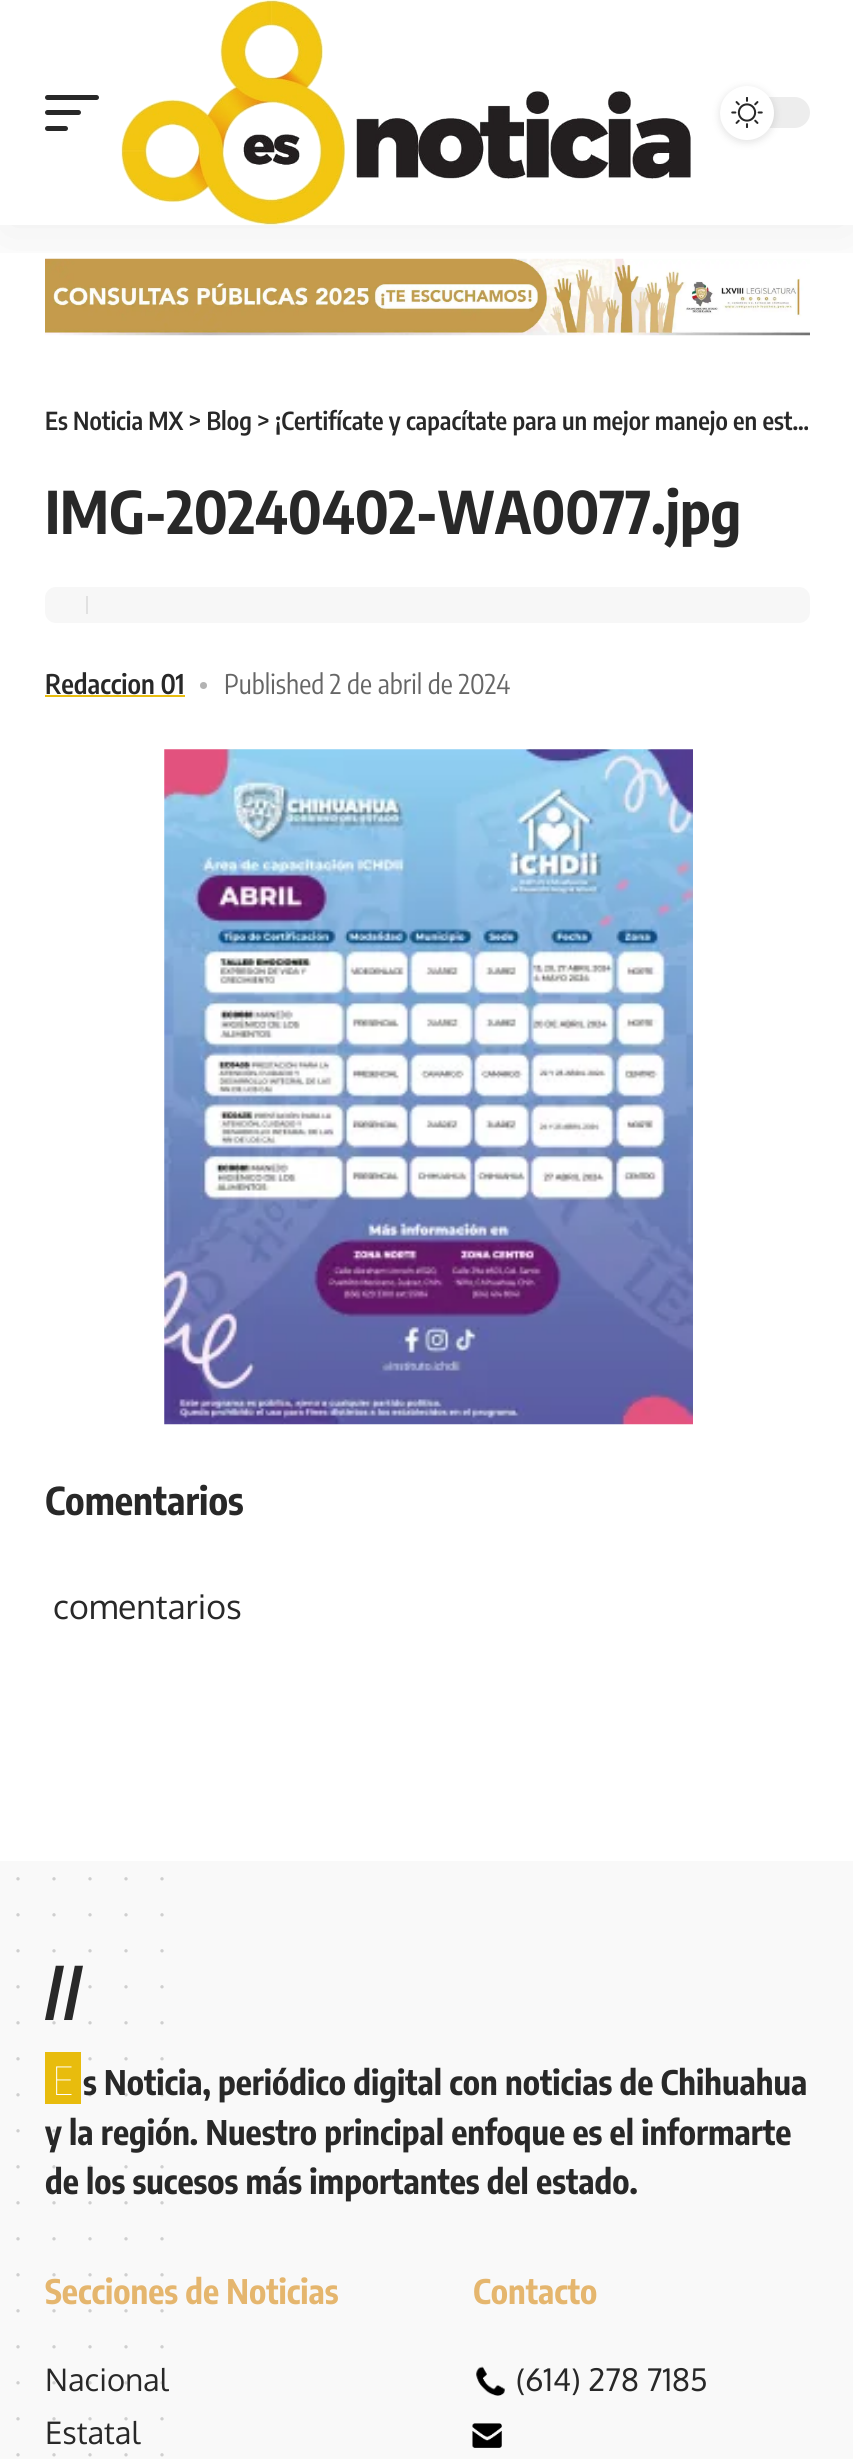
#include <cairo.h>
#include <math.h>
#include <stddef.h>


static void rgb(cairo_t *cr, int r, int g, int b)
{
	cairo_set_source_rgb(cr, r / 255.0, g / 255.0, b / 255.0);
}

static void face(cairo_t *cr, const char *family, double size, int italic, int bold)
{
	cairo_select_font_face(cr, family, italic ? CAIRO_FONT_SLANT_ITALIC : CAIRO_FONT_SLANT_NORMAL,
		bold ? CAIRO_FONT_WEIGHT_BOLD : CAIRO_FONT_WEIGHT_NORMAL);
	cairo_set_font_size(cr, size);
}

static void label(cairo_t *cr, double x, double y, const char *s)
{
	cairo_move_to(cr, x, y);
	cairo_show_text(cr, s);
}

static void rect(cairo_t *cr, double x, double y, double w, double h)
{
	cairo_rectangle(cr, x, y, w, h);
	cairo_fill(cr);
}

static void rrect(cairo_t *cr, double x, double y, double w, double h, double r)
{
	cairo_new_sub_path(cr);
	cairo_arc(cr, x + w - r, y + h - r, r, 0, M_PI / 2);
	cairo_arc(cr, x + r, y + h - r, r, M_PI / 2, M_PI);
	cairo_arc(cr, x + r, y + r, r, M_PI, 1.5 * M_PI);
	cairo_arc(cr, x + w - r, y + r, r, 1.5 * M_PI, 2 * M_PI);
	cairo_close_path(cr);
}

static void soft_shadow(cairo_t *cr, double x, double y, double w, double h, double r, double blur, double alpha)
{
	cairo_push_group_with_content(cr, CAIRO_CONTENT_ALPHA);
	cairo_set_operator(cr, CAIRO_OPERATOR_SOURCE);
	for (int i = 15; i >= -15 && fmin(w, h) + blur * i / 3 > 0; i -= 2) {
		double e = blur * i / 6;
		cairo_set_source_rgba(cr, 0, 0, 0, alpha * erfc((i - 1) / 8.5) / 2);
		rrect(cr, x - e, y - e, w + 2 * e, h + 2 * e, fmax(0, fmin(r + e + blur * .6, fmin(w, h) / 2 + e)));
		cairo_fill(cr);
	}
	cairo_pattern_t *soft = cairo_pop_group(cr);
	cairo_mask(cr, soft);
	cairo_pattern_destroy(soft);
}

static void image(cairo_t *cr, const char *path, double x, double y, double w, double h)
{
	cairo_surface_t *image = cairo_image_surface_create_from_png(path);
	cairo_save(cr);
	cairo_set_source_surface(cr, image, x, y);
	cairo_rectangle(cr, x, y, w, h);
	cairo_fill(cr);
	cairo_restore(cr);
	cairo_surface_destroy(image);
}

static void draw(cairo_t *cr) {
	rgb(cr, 255, 255, 255);
	cairo_paint(cr);
	image(cr, "image2.png", 45, 258, 765, 78);
	cairo_save(cr);
	cairo_rectangle(cr, 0, 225, 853, 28);
	cairo_clip(cr);
	rgb(cr, 0, 0, 0);
	soft_shadow(cr, 0, 9, 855, 225, 0, 34, 0.07);
	cairo_restore(cr);
	rgb(cr, 40, 40, 40);
	rrect(cr, 45, 95, 54, 5, 2.5);
	cairo_fill(cr);
	rrect(cr, 45, 110, 36, 5, 2.5);
	cairo_fill(cr);
	rrect(cr, 45, 126, 23, 5, 2.5);
	cairo_fill(cr);
	image(cr, "image0.png", 121, 0, 570, 225);
	rgb(cr, 237, 237, 237);
	rrect(cr, 720, 97, 90, 31, 15.5);
	cairo_fill(cr);
	rgb(cr, 0, 0, 0);
	soft_shadow(cr, 720, 88, 54, 54, 27, 4.5, 0.12);
	rgb(cr, 255, 255, 255);
	cairo_arc(cr, 747, 113, 27, 0, 2 * M_PI);
	cairo_fill(cr);
	image(cr, "image1.png", 731, 97, 32, 31);
	face(cr, "Encode Sans Condensed SemiBold", 24.75, 0, 0);
	rgb(cr, 40, 40, 40);
	label(cr, 45, 430, "Es Noticia MX > Blog > ¡Certifícate y capacítate para un mejor manejo en est…");
	face(cr, "Encode Sans Condensed", 58.5, 0, 1);
	label(cr, 45, 534, "IMG-20240402-WA0077.jpg");
	rgb(cr, 247, 247, 247);
	rrect(cr, 45, 587, 765, 36, 11);
	cairo_fill(cr);
	rgb(cr, 225, 225, 225);
	rect(cr, 86, 596, 2, 18);
	face(cr, "Encode Sans Condensed SemiBold", 27, 0, 0);
	rgb(cr, 40, 40, 40);
	label(cr, 45, 694, "Redaccion 01");
	rgb(cr, 232, 188, 13);
	rect(cr, 45, 695, 140, 2);
	rgb(cr, 179, 179, 179);
	cairo_new_path(cr);
	cairo_arc(cr, 203.5, 685.5, 3.5, 0, 2 * M_PI);
	cairo_fill(cr);
	face(cr, "Encode Sans Condensed", 27, 0, 0);
	rgb(cr, 102, 102, 102);
	label(cr, 224, 694, "Published 2 de abril de 2024");
	image(cr, "image3.png", 164, 749, 529, 676);
	face(cr, "Encode Sans Condensed", 38.25, 0, 1);
	rgb(cr, 40, 40, 40);
	label(cr, 45, 1515, "Comentarios");
	face(cr, "Oxygen", 33.75, 0, 0);
	label(cr, 53, 1619, "comentarios");
	rgb(cr, 249, 249, 249);
	rect(cr, 0, 1861, 853, 598);
	cairo_new_path(cr);
	cairo_move_to(cr, 18, 1878.8);
	cairo_line_to(cr, 18, 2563.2);
	rgb(cr, 207, 207, 207);
	cairo_set_line_width(cr, 3.4);
	cairo_set_line_cap(cr, CAIRO_LINE_CAP_ROUND);
	cairo_set_dash(cr, (double[]){0, 36}, 2, 0);
	cairo_stroke(cr);
	cairo_new_path(cr);
	cairo_move_to(cr, 54, 1878.8);
	cairo_line_to(cr, 54, 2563.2);
	cairo_stroke(cr);
	cairo_new_path(cr);
	cairo_move_to(cr, 90, 1878.8);
	cairo_line_to(cr, 90, 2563.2);
	cairo_stroke(cr);
	cairo_new_path(cr);
	cairo_move_to(cr, 126, 1878.8);
	cairo_line_to(cr, 126, 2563.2);
	cairo_stroke(cr);
	cairo_new_path(cr);
	cairo_move_to(cr, 162, 1878.8);
	cairo_line_to(cr, 162, 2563.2);
	cairo_stroke(cr);
	face(cr, "Encode Sans Condensed", 58.5, 0, 1);
	rgb(cr, 40, 40, 40);
	label(cr, 45, 2013, "//");
	rgb(cr, 232, 188, 13);
	rect(cr, 45, 2052, 36, 52);
	face(cr, "Noto Sans Thin", 40, 0, 0);
	rgb(cr, 255, 255, 255);
	label(cr, 52, 2095, "E");
	face(cr, "Encode Sans Condensed", 33.75, 0, 1);
	rgb(cr, 40, 40, 40);
	label(cr, 83, 2095, "s Noticia, periódico digital con noticias de Chihuahua");
	label(cr, 45, 2145, "y la región. Nuestro principal enfoque es el informarte");
	label(cr, 45, 2194, "de los sucesos más importantes del estado.");
	rgb(cr, 229, 182, 110);
	label(cr, 45, 2304, "Secciones de Noticias");
	face(cr, "Oxygen", 31, 0, 0);
	rgb(cr, 40, 40, 40);
	label(cr, 45, 2391, "Nacional");
	label(cr, 45, 2444, "Estatal");
	face(cr, "Encode Sans Condensed", 33.75, 0, 1);
	rgb(cr, 229, 182, 110);
	label(cr, 473, 2304, "Contacto");
	image(cr, "image4.png", 476, 2366, 29, 30);
	face(cr, "Oxygen", 31, 0, 0);
	rgb(cr, 40, 40, 40);
	label(cr, 516, 2391, "(614) 278 7185");
	image(cr, "image5.png", 472, 2423, 30, 25);
}

int main(void) {
	cairo_surface_t *surface = cairo_image_surface_create(CAIRO_FORMAT_RGB24, 853, 2459);
	cairo_t *cr = cairo_create(surface);
	cairo_font_options_t *options = cairo_font_options_create();
	cairo_font_options_set_hint_metrics(options, CAIRO_HINT_METRICS_OFF);
	cairo_font_options_set_hint_style(options, CAIRO_HINT_STYLE_NONE);
	cairo_set_font_options(cr, options);
	cairo_set_miter_limit(cr, 4);
	draw(cr);
	cairo_surface_write_to_png(surface, "render.png");
	cairo_font_options_destroy(options);
	cairo_destroy(cr);
	cairo_surface_destroy(surface);
	return 0;
}
